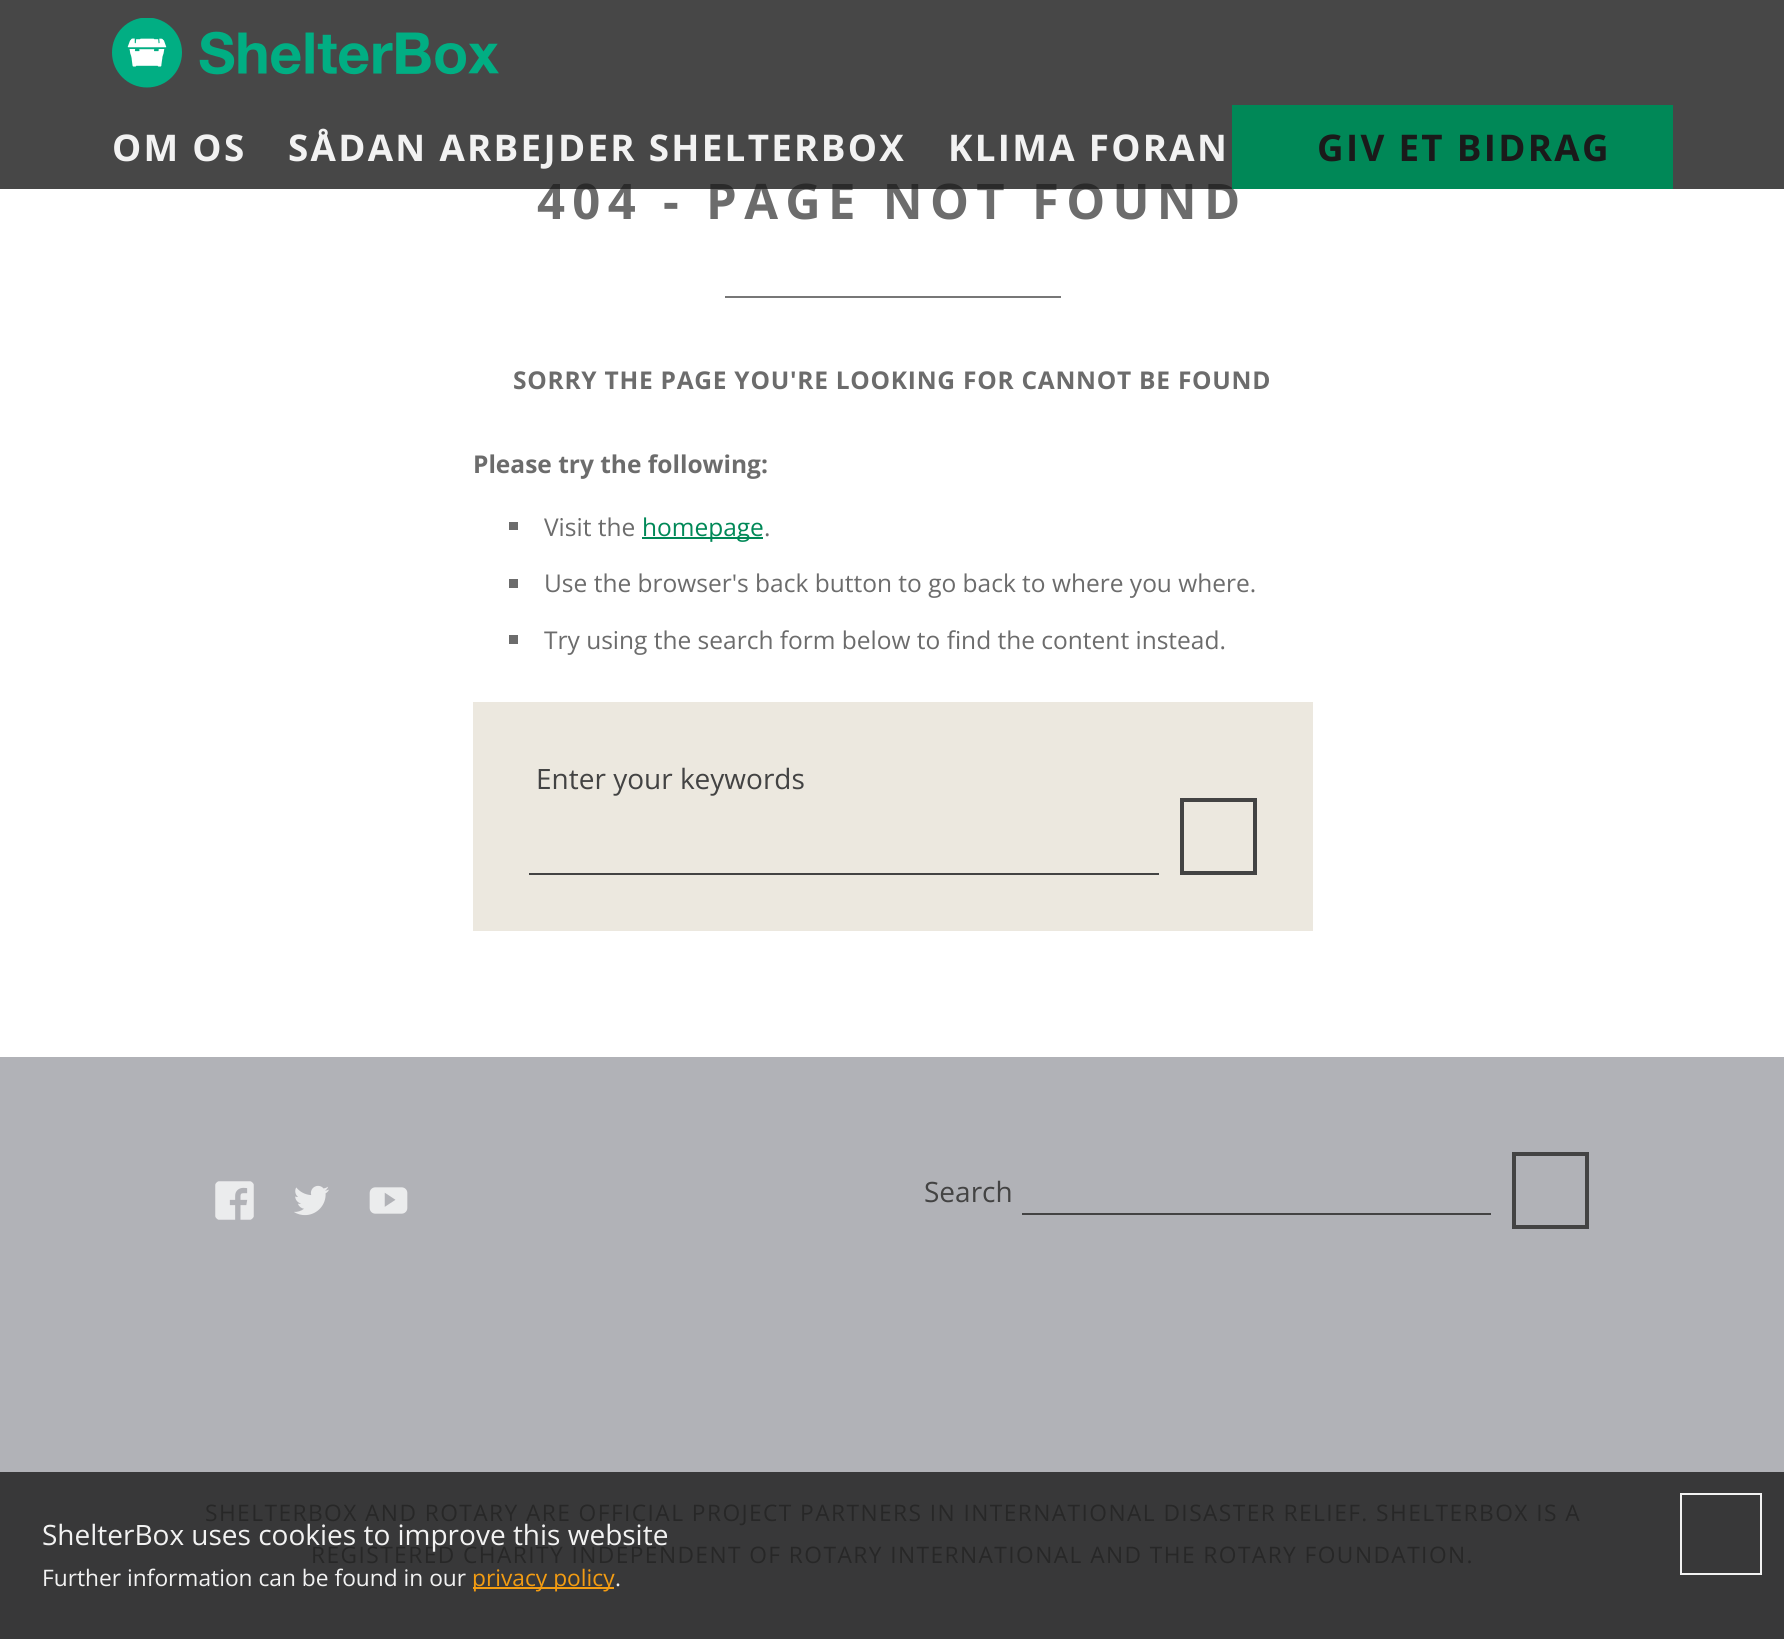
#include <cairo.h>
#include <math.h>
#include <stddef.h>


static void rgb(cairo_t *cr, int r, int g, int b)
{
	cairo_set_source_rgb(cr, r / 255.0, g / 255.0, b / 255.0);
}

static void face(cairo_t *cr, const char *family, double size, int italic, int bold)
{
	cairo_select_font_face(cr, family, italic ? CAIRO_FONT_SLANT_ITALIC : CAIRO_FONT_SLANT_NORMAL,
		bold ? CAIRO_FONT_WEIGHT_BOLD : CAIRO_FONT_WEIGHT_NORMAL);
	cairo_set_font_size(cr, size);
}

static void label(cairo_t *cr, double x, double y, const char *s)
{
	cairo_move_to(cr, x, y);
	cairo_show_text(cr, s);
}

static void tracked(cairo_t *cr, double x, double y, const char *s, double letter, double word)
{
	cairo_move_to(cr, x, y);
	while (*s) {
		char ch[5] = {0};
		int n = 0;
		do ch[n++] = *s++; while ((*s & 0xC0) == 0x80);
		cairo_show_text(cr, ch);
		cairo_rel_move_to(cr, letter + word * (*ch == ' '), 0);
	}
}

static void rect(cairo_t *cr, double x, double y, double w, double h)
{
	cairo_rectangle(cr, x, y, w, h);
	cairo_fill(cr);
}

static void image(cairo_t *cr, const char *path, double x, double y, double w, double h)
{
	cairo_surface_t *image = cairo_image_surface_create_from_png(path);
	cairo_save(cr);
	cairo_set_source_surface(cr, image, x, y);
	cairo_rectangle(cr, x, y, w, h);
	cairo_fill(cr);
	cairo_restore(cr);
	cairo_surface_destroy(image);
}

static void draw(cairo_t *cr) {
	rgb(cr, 255, 255, 255);
	cairo_paint(cr);
	face(cr, "Open Sans", 49, 0, 1);
	rgb(cr, 108, 108, 108);
	tracked(cr, 537, 219, "404 - PAGE NOT FOUND", 7.3, 0);
	cairo_set_source_rgba(cr, 0.102, 0.102, 0.102, 0.8);
	rect(cr, 0, 0, 1784, 189);
	image(cr, "image0.png", 112, 18, 387, 70);
	face(cr, "Open Sans", 36.75, 0, 1);
	rgb(cr, 242, 242, 242);
	tracked(cr, 112, 161, "OM OS", 2.3, 0);
	tracked(cr, 288, 161, "SÅDAN ARBEJDER SHELTERBOX", 2.3, 0);
	tracked(cr, 948, 161, "KLIMA FORAN", 2.3, 0);
	rgb(cr, 0, 136, 87);
	rect(cr, 1232, 105, 441, 84);
	rgb(cr, 26, 26, 26);
	tracked(cr, 1317, 161, "GIV ET BIDRAG", 2.3, 0);
	rgb(cr, 119, 119, 119);
	rect(cr, 725, 296, 336, 2);
	face(cr, "Open Sans", 24.5, 0, 1);
	rgb(cr, 108, 108, 108);
	tracked(cr, 513, 389, "SORRY THE PAGE YOU'RE LOOKING FOR CANNOT BE FOUND", 0.75, 0);
	label(cr, 473, 473, "Please try the following:");
	rect(cr, 509, 522, 9, 8);
	face(cr, "Open Sans", 24.5, 0, 0);
	label(cr, 544, 536, "Visit the");
	rgb(cr, 0, 136, 87);
	rect(cr, 642, 537, 121, 2);
	label(cr, 642, 536, "homepage");
	rgb(cr, 108, 108, 108);
	label(cr, 764, 536, ".");
	rect(cr, 509, 579, 9, 9);
	label(cr, 544, 592, "Use the browser's back button to go back to where you where.");
	rect(cr, 509, 635, 9, 9);
	label(cr, 544, 649, "Try using the search form below to find the content instead.");
	rgb(cr, 236, 232, 223);
	rect(cr, 473, 702, 840, 229);
	face(cr, "Open Sans", 28, 0, 0);
	rgb(cr, 67, 67, 67);
	label(cr, 536, 789, "Enter your keywords");
	rect(cr, 529, 873, 630, 2);
	cairo_rectangle(cr, 1182, 800, 73, 73);
	cairo_set_line_width(cr, 4);
	cairo_stroke(cr);
	rgb(cr, 177, 178, 183);
	rect(cr, 0, 1057, 1784, 415);
	rgb(cr, 56, 56, 57);
	rect(cr, 0, 1472, 1784, 167);
	image(cr, "image1.png", 215, 1181, 39, 39);
	image(cr, "image2.png", 294, 1185, 35, 31);
	image(cr, "image3.png", 369, 1187, 39, 27);
	rgb(cr, 67, 67, 67);
	label(cr, 924, 1202, "Search");
	rect(cr, 1022, 1213, 469, 2);
	cairo_rectangle(cr, 1514, 1154, 73, 73);
	cairo_stroke(cr);
	face(cr, "Open Sans", 22.75, 0, 0);
	rgb(cr, 39, 39, 39);
	tracked(cr, 205, 1521, "SHELTERBOX AND ROTARY ARE OFFICIAL PROJECT PARTNERS IN INTERNATIONAL DISASTER RELIEF. SHELTERBOX IS A", 1.42, 0);
	tracked(cr, 311, 1563, "REGISTERED CHARITY INDEPENDENT OF ROTARY INTERNATIONAL AND THE ROTARY FOUNDATION.", 1.42, 0);
	face(cr, "Open Sans", 28, 0, 0);
	rgb(cr, 242, 242, 242);
	label(cr, 42, 1545, "ShelterBox uses cookies to improve this website");
	cairo_rectangle(cr, 1681, 1494, 80, 80);
	cairo_set_line_width(cr, 2);
	cairo_stroke(cr);
	face(cr, "Open Sans", 22.75, 0, 0);
	label(cr, 42, 1586, "Further information can be found in our");
	rgb(cr, 243, 156, 18);
	rect(cr, 473, 1587, 141, 2);
	label(cr, 472, 1586, "privacy policy");
	rgb(cr, 242, 242, 242);
	label(cr, 615, 1586, ".");
}

int main(void) {
	cairo_surface_t *surface = cairo_image_surface_create(CAIRO_FORMAT_RGB24, 1784, 1639);
	cairo_t *cr = cairo_create(surface);
	cairo_font_options_t *options = cairo_font_options_create();
	cairo_font_options_set_hint_metrics(options, CAIRO_HINT_METRICS_OFF);
	cairo_font_options_set_hint_style(options, CAIRO_HINT_STYLE_NONE);
	cairo_set_font_options(cr, options);
	cairo_set_miter_limit(cr, 4);
	draw(cr);
	cairo_surface_write_to_png(surface, "render.png");
	cairo_font_options_destroy(options);
	cairo_destroy(cr);
	cairo_surface_destroy(surface);
	return 0;
}
